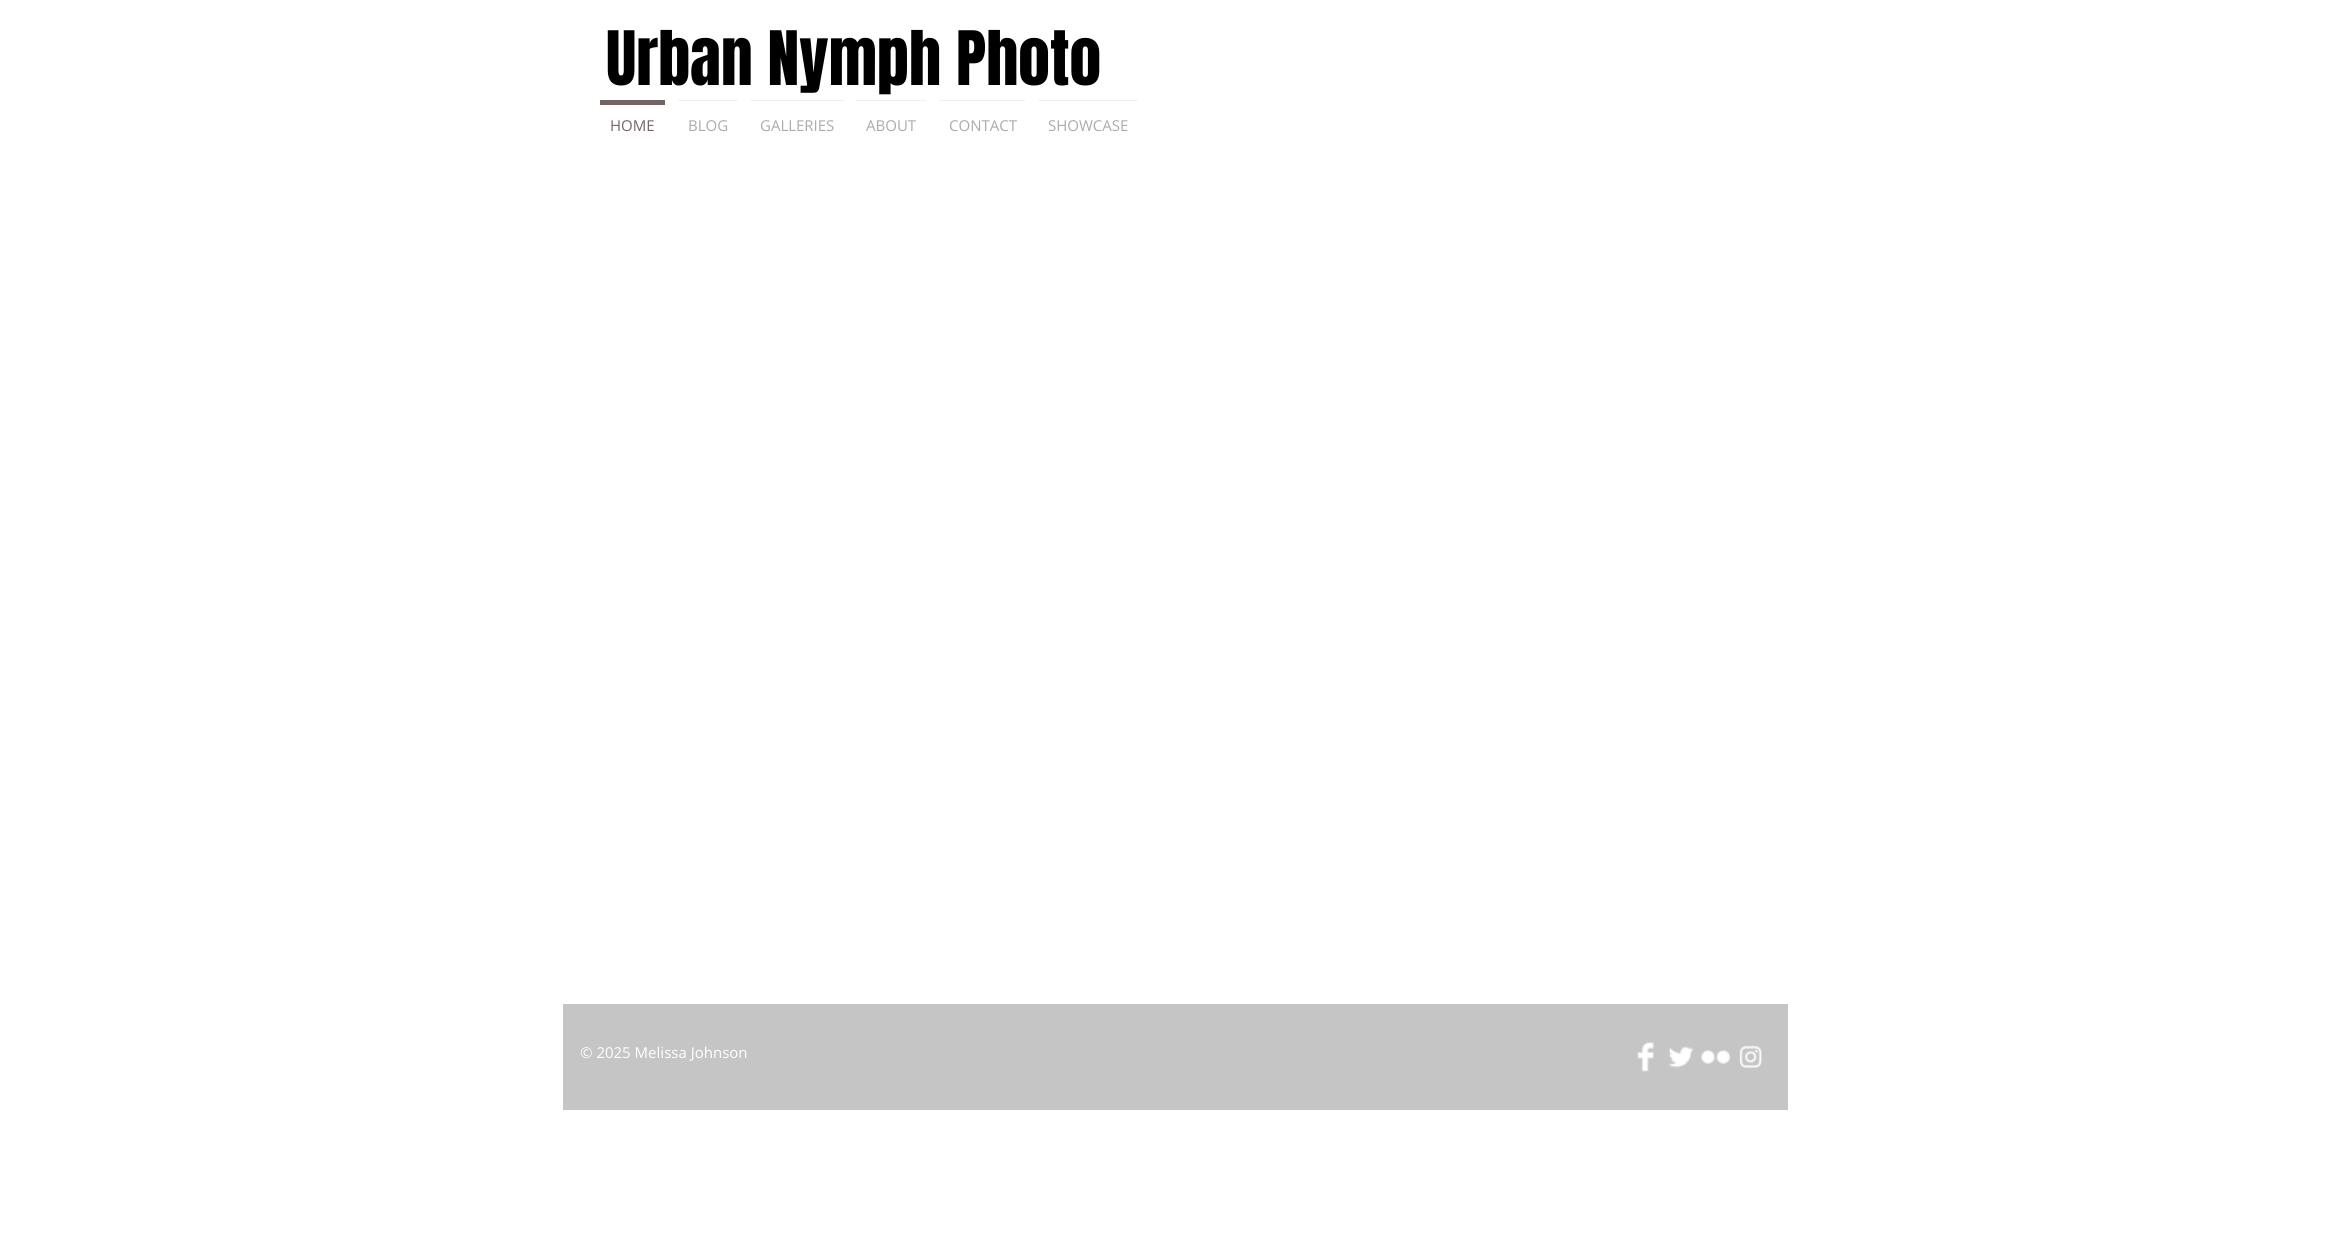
#include <cairo.h>
#include <math.h>
#include <stddef.h>


static void rgb(cairo_t *cr, int r, int g, int b)
{
	cairo_set_source_rgb(cr, r / 255.0, g / 255.0, b / 255.0);
}

static void face(cairo_t *cr, const char *family, double size, int italic, int bold)
{
	cairo_select_font_face(cr, family, italic ? CAIRO_FONT_SLANT_ITALIC : CAIRO_FONT_SLANT_NORMAL,
		bold ? CAIRO_FONT_WEIGHT_BOLD : CAIRO_FONT_WEIGHT_NORMAL);
	cairo_set_font_size(cr, size);
}

static void label(cairo_t *cr, double x, double y, const char *s)
{
	cairo_move_to(cr, x, y);
	cairo_show_text(cr, s);
}

static void rect(cairo_t *cr, double x, double y, double w, double h)
{
	cairo_rectangle(cr, x, y, w, h);
	cairo_fill(cr);
}

static void image(cairo_t *cr, const char *path, double x, double y, double w, double h)
{
	cairo_surface_t *image = cairo_image_surface_create_from_png(path);
	cairo_save(cr);
	cairo_set_source_surface(cr, image, x, y);
	cairo_rectangle(cr, x, y, w, h);
	cairo_fill(cr);
	cairo_restore(cr);
	cairo_surface_destroy(image);
}

static void draw(cairo_t *cr) {
	rgb(cr, 255, 255, 255);
	cairo_paint(cr);
	face(cr, "Anton", 63.75, 0, 0);
	rgb(cr, 0, 0, 0);
	label(cr, 606, 85, "Urban Nymph Photo");
	rgb(cr, 117, 100, 100);
	rect(cr, 600, 100, 65, 5);
	face(cr, "Open Sans", 15, 0, 0);
	label(cr, 610, 131, "HOME");
	rgb(cr, 239, 239, 239);
	rect(cr, 678, 100, 60, 1);
	rgb(cr, 171, 171, 171);
	label(cr, 688, 131, "BLOG");
	rgb(cr, 239, 239, 239);
	rect(cr, 750, 100, 94, 1);
	rgb(cr, 171, 171, 171);
	label(cr, 760, 131, "GALLERIES");
	rgb(cr, 239, 239, 239);
	rect(cr, 856, 100, 70, 1);
	rgb(cr, 171, 171, 171);
	label(cr, 866, 131, "ABOUT");
	rgb(cr, 239, 239, 239);
	rect(cr, 939, 100, 86, 1);
	rgb(cr, 171, 171, 171);
	label(cr, 949, 131, "CONTACT");
	rgb(cr, 239, 239, 239);
	rect(cr, 1038, 100, 100, 1);
	rgb(cr, 171, 171, 171);
	label(cr, 1048, 131, "SHOWCASE");
	rgb(cr, 197, 197, 197);
	rect(cr, 563, 1004, 1225, 106);
	rgb(cr, 255, 255, 255);
	label(cr, 580, 1058, "© 2025 Melissa Johnson");
	image(cr, "image0.png", 1637, 1042, 17, 30);
	image(cr, "image1.png", 1668, 1046, 26, 22);
	image(cr, "image2.png", 1701, 1050, 29, 14);
	image(cr, "image3.png", 1739, 1045, 23, 23);
}

int main(void) {
	cairo_surface_t *surface = cairo_image_surface_create(CAIRO_FORMAT_RGB24, 2350, 1250);
	cairo_t *cr = cairo_create(surface);
	cairo_font_options_t *options = cairo_font_options_create();
	cairo_font_options_set_hint_metrics(options, CAIRO_HINT_METRICS_OFF);
	cairo_font_options_set_hint_style(options, CAIRO_HINT_STYLE_NONE);
	cairo_set_font_options(cr, options);
	cairo_set_miter_limit(cr, 4);
	draw(cr);
	cairo_surface_write_to_png(surface, "render.png");
	cairo_font_options_destroy(options);
	cairo_destroy(cr);
	cairo_surface_destroy(surface);
	return 0;
}
